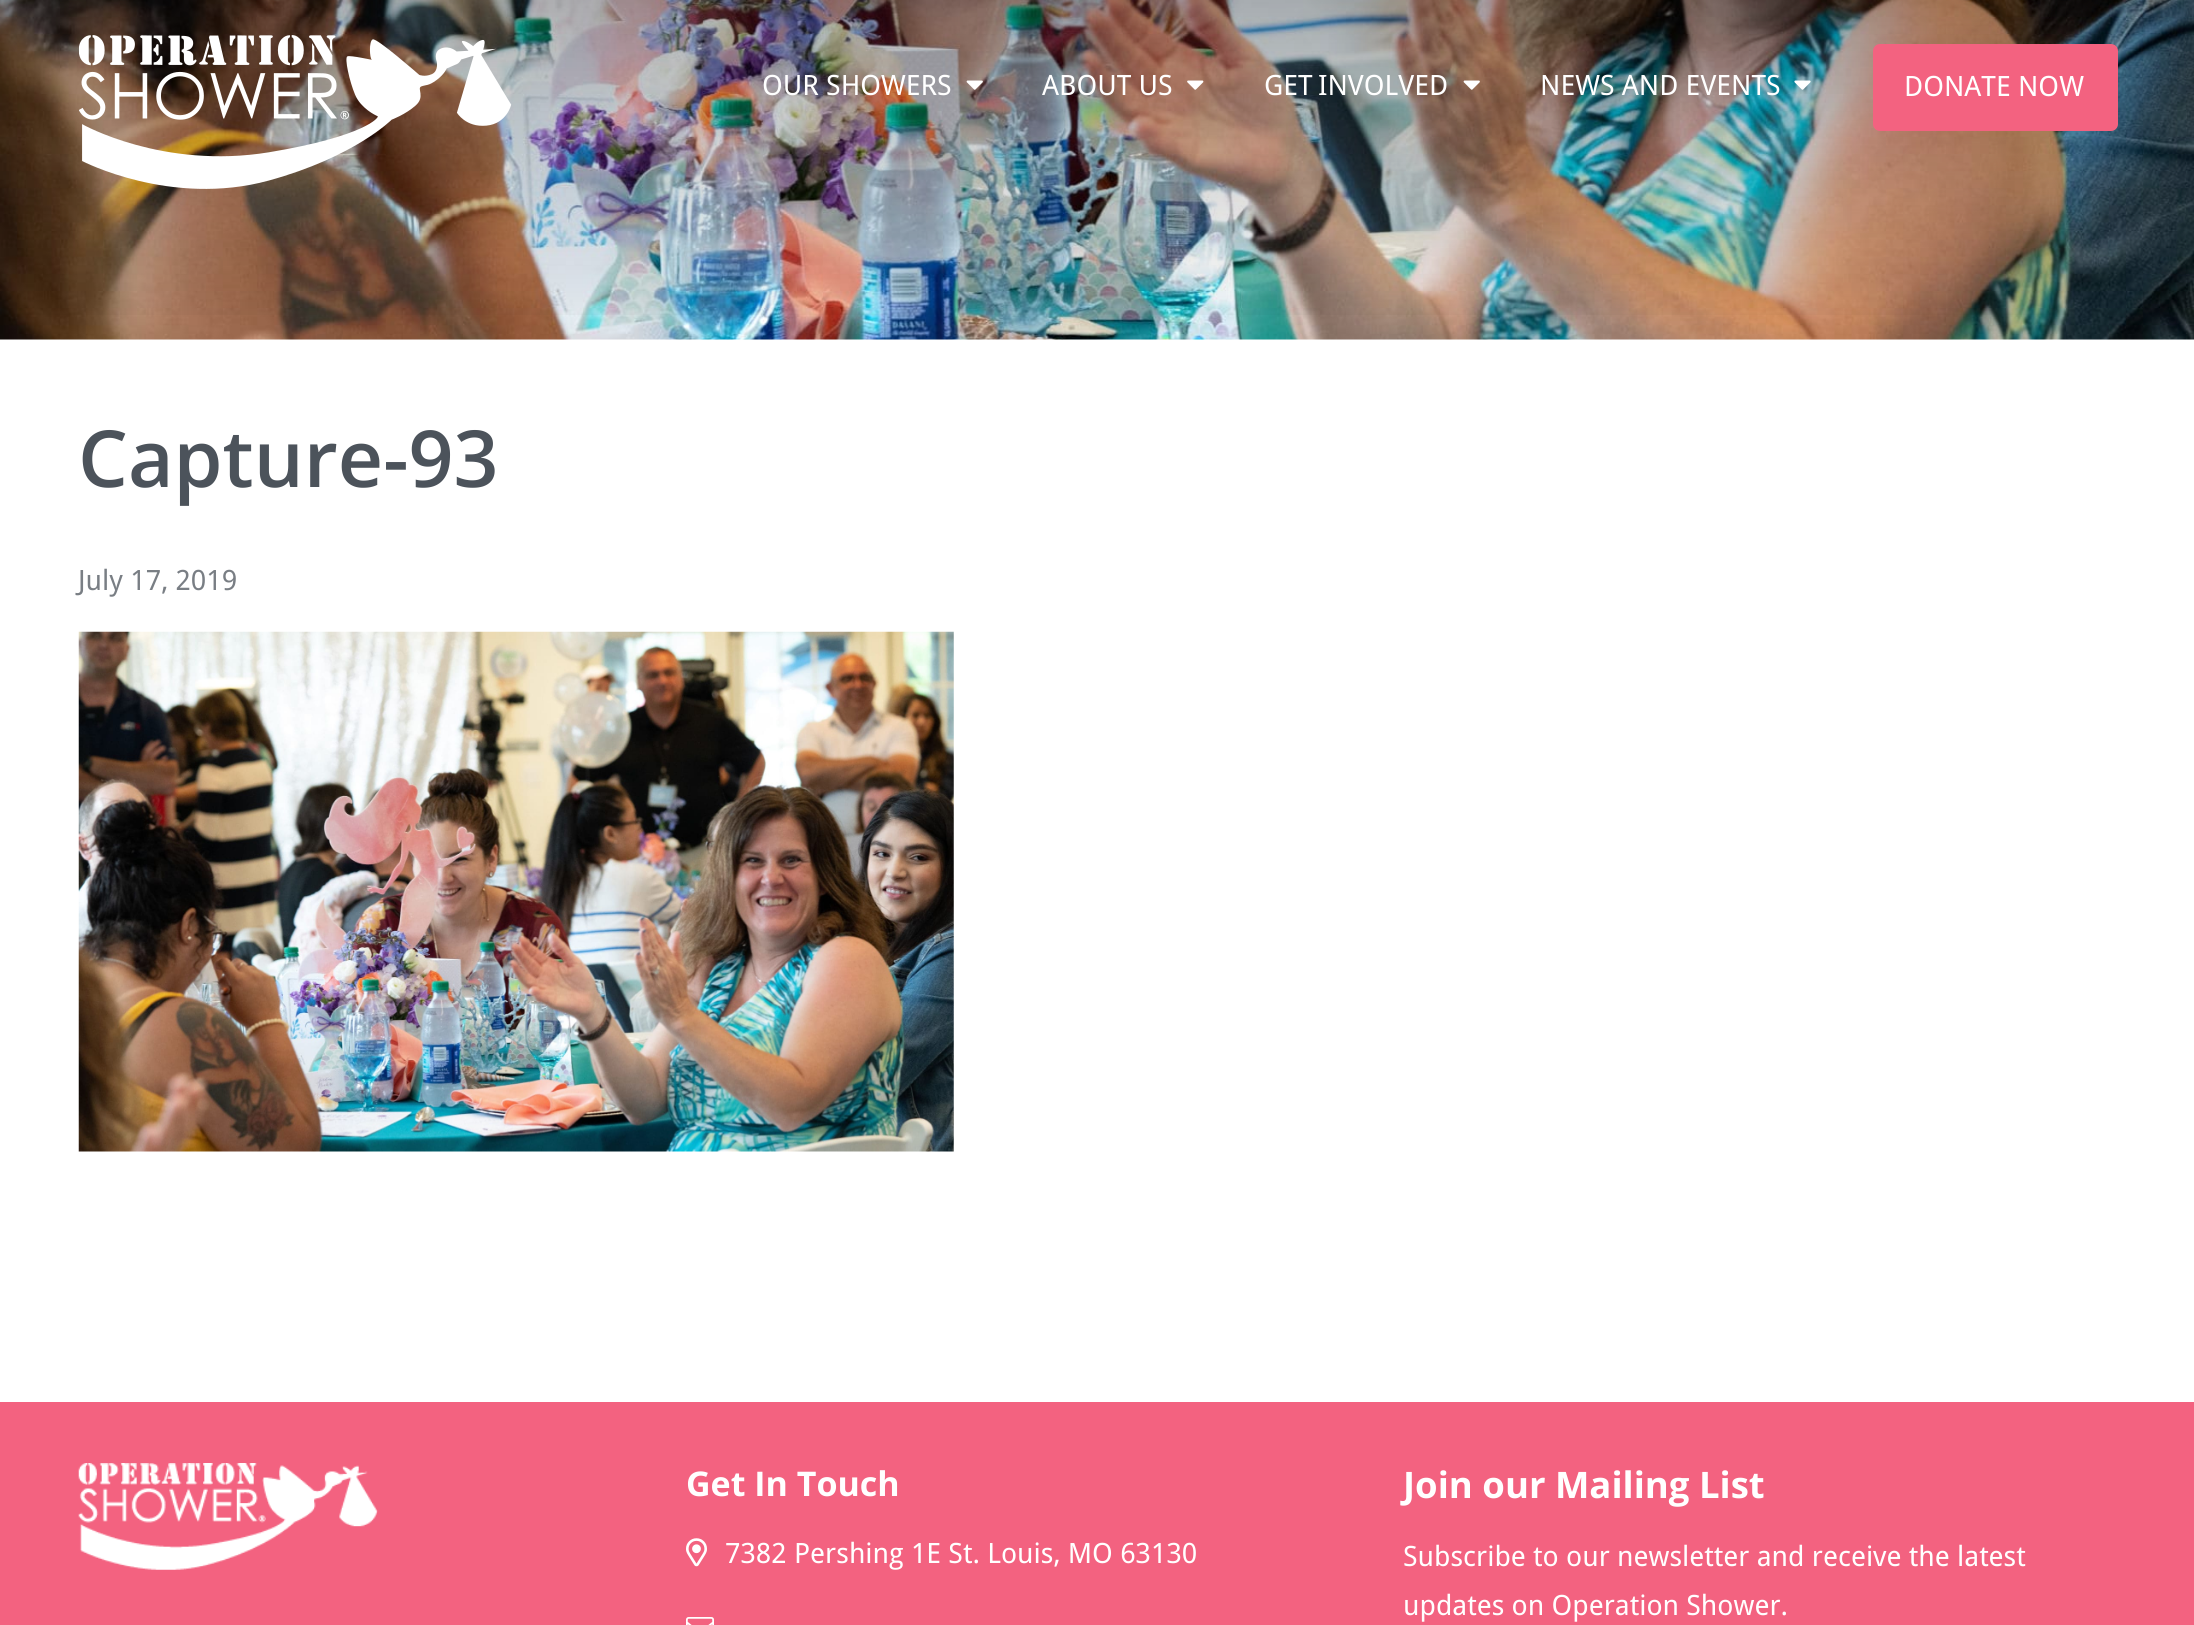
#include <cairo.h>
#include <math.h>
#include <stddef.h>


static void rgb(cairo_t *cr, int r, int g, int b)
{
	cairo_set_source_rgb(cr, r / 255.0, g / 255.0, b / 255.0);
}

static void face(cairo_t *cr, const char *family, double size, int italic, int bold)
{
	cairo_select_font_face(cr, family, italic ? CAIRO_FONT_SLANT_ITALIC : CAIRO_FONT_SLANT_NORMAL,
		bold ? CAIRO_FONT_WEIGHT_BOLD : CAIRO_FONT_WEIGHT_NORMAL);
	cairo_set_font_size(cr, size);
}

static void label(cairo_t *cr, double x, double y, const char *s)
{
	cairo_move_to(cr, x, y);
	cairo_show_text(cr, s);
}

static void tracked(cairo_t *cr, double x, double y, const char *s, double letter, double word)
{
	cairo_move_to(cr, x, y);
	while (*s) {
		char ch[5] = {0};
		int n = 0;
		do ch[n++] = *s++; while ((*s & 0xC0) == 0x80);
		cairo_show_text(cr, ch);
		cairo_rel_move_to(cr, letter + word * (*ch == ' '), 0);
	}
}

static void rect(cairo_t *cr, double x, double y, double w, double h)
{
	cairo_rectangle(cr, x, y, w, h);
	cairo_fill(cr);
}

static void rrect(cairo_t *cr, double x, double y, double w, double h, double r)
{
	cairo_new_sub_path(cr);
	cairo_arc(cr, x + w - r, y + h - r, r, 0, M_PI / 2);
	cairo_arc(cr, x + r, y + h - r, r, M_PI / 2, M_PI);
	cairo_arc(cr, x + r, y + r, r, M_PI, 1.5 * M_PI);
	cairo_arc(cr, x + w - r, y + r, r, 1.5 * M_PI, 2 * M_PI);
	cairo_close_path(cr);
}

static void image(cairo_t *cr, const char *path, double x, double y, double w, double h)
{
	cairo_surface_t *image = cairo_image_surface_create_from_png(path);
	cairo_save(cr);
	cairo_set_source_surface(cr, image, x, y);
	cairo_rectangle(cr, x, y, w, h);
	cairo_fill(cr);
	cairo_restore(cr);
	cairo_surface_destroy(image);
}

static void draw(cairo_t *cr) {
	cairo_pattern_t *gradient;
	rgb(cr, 255, 255, 255);
	cairo_paint(cr);
	image(cr, "image0.png", 0, 0, 2194, 340);
	gradient = cairo_pattern_create_linear(1097, -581, 1097, 340);
	cairo_pattern_add_color_stop_rgba(gradient, 0, 0, 0, 0, 0.6);
	cairo_pattern_add_color_stop_rgba(gradient, 0.5, 0, 0, 0, 0.4);
	cairo_pattern_add_color_stop_rgba(gradient, 1, 0, 0, 0, 0);
	cairo_set_source(cr, gradient);
	cairo_pattern_destroy(gradient);
	rect(cr, 0, 0, 2194, 315);
	image(cr, "image1.png", 79, 35, 433, 154);
	face(cr, "Droid Sans", 28, 0, 0);
	rgb(cr, 255, 255, 255);
	label(cr, 762, 95, "OUR SHOWERS");
	image(cr, "image2.png", 966, 80, 17, 10);
	label(cr, 1042, 95, "ABOUT US");
	image(cr, "image3.png", 1187, 80, 17, 10);
	tracked(cr, 1264, 95, "GET INVOLVED", 0, -2);
	image(cr, "image4.png", 1463, 80, 17, 10);
	label(cr, 1540, 95, "NEWS AND EVENTS");
	image(cr, "image5.png", 1794, 80, 17, 10);
	rgb(cr, 243, 98, 128);
	rrect(cr, 1874, 45, 243, 85, 6);
	cairo_fill_preserve(cr);
	cairo_stroke(cr);
	rgb(cr, 255, 255, 255);
	label(cr, 1904, 96, "DONATE NOW");
	face(cr, "Open Sans SemiBold", 78.75, 0, 0);
	rgb(cr, 76, 83, 91);
	label(cr, 78, 487, "Capture-93");
	face(cr, "Droid Sans", 28, 0, 0);
	rgb(cr, 121, 126, 132);
	label(cr, 78, 590, "July 17, 2019");
	image(cr, "image6.png", 78, 631, 876, 521);
	rgb(cr, 243, 98, 128);
	rect(cr, 0, 1402, 2194, 223);
	image(cr, "image7.png", 78, 1463, 300, 107);
	face(cr, "Open Sans", 34, 0, 1);
	rgb(cr, 255, 255, 255);
	label(cr, 686, 1496, "Get In Touch");
	image(cr, "image8.png", 686, 1538, 21, 29);
	face(cr, "Droid Sans", 28, 0, 0);
	label(cr, 725, 1563, "7382 Pershing 1E St. Louis, MO 63130");
	image(cr, "image9.png", 686, 1617, 28, 8);
	face(cr, "Open Sans", 36.5, 0, 1);
	label(cr, 1403, 1498, "Join our Mailing List");
	face(cr, "Droid Sans", 28, 0, 0);
	label(cr, 1403, 1566, "Subscribe to our newsletter and receive the latest");
	label(cr, 1403, 1615, "updates on Operation Shower.");
}

int main(void) {
	cairo_surface_t *surface = cairo_image_surface_create(CAIRO_FORMAT_RGB24, 2194, 1625);
	cairo_t *cr = cairo_create(surface);
	cairo_font_options_t *options = cairo_font_options_create();
	cairo_font_options_set_hint_metrics(options, CAIRO_HINT_METRICS_OFF);
	cairo_font_options_set_hint_style(options, CAIRO_HINT_STYLE_NONE);
	cairo_set_font_options(cr, options);
	cairo_set_miter_limit(cr, 4);
	draw(cr);
	cairo_surface_write_to_png(surface, "render.png");
	cairo_font_options_destroy(options);
	cairo_destroy(cr);
	cairo_surface_destroy(surface);
	return 0;
}
